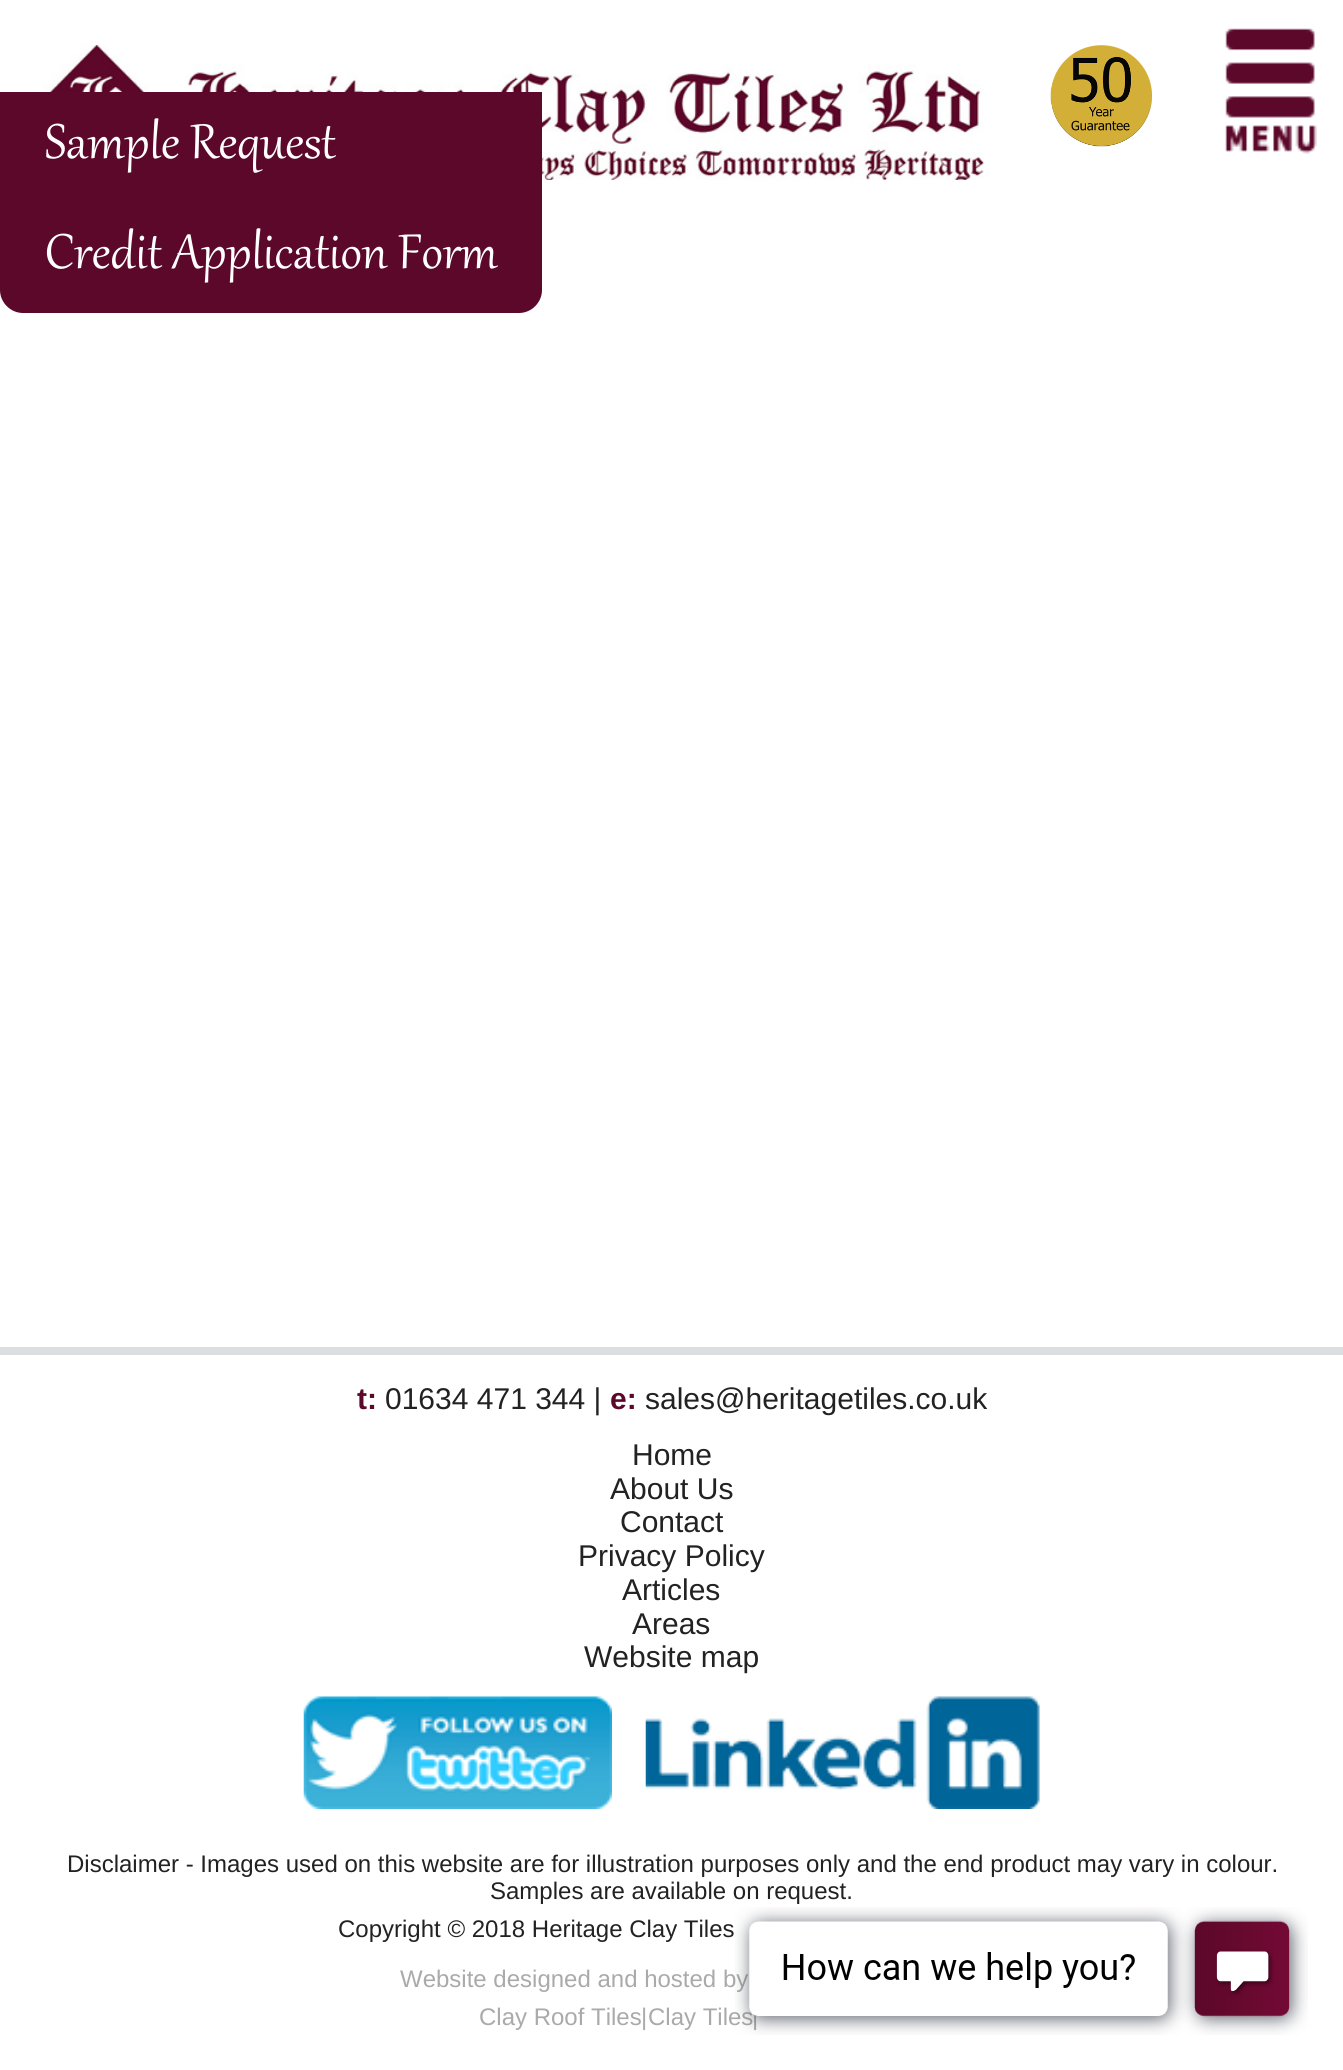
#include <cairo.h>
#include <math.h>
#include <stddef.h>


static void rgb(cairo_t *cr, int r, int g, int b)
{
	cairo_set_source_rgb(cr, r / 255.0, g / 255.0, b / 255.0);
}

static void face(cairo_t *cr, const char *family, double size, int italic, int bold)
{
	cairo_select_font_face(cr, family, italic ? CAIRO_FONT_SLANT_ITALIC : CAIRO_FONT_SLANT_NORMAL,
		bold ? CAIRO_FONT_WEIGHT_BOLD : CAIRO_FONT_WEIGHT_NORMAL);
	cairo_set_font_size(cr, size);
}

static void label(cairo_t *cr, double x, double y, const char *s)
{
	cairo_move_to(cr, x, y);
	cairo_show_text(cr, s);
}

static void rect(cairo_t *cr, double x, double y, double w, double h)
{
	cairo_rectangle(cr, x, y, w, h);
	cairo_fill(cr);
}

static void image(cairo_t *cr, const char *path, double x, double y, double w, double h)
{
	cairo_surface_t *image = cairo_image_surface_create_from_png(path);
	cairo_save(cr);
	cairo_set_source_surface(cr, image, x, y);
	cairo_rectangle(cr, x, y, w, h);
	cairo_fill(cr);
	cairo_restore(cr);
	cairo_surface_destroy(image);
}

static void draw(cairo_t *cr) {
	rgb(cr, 255, 255, 255);
	cairo_paint(cr);
	image(cr, "image0.png", 22, 45, 962, 135);
	image(cr, "image1.png", 1050, 45, 102, 102);
	image(cr, "image2.png", 1225, 28, 92, 126);
	rgb(cr, 92, 8, 42);
	cairo_new_path(cr);
	cairo_move_to(cr, 0, 92);
	cairo_line_to(cr, 542, 92);
	cairo_line_to(cr, 542, 290);
	cairo_curve_to(cr, 542, 302.5, 531.5, 313, 519, 313);
	cairo_line_to(cr, 23, 313);
	cairo_curve_to(cr, 10.5, 313, 0, 302.5, 0, 290);
	cairo_close_path(cr);
	cairo_fill(cr);
	face(cr, "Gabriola", 60, 0, 0);
	rgb(cr, 255, 255, 255);
	label(cr, 45, 158, "Sample Request");
	label(cr, 45, 268, "Credit Application Form");
	rgb(cr, 221, 222, 224);
	rect(cr, 0, 1347, 1343, 8);
	face(cr, "Liberation Sans", 30, 0, 1);
	rgb(cr, 92, 8, 42);
	label(cr, 357, 1409, "t:");
	face(cr, "Liberation Sans", 30, 0, 0);
	rgb(cr, 34, 34, 34);
	label(cr, 385, 1409, "01634 471 344 |");
	face(cr, "Liberation Sans", 30, 0, 1);
	rgb(cr, 92, 8, 42);
	label(cr, 610, 1409, "e:");
	face(cr, "Liberation Sans", 30, 0, 0);
	rgb(cr, 34, 34, 34);
	label(cr, 645, 1409, "sales@heritagetiles.co.uk");
	label(cr, 632, 1465, "Home");
	label(cr, 610, 1499, "About Us");
	label(cr, 620, 1532, "Contact");
	label(cr, 578, 1566, "Privacy Policy");
	label(cr, 622, 1600, "Articles");
	label(cr, 632, 1634, "Areas");
	label(cr, 584, 1667, "Website map");
	image(cr, "image3.png", 303, 1696, 309, 113);
	image(cr, "image4.png", 645, 1696, 395, 113);
	face(cr, "Liberation Sans", 24, 0, 0);
	label(cr, 67, 1872, "Disclaimer - Images used on this website are for illustration purposes only and the end product may vary in colour.");
	label(cr, 490, 1899, "Samples are available on request.");
	label(cr, 338, 1937, "Copyright © 2018 Heritage Clay Tiles");
	rgb(cr, 170, 170, 170);
	label(cr, 400, 1987, "Website designed and hosted by");
	label(cr, 479, 2025, "Clay Roof Tiles");
	label(cr, 641, 2025, "|");
	label(cr, 648, 2025, "Clay Tiles");
	label(cr, 752, 2025, "|");
	image(cr, "image5.png", 735, 1907, 573, 128);
}

int main(void) {
	cairo_surface_t *surface = cairo_image_surface_create(CAIRO_FORMAT_RGB24, 1343, 2070);
	cairo_t *cr = cairo_create(surface);
	cairo_font_options_t *options = cairo_font_options_create();
	cairo_font_options_set_hint_metrics(options, CAIRO_HINT_METRICS_OFF);
	cairo_font_options_set_hint_style(options, CAIRO_HINT_STYLE_NONE);
	cairo_set_font_options(cr, options);
	cairo_set_miter_limit(cr, 4);
	draw(cr);
	cairo_surface_write_to_png(surface, "render.png");
	cairo_font_options_destroy(options);
	cairo_destroy(cr);
	cairo_surface_destroy(surface);
	return 0;
}
